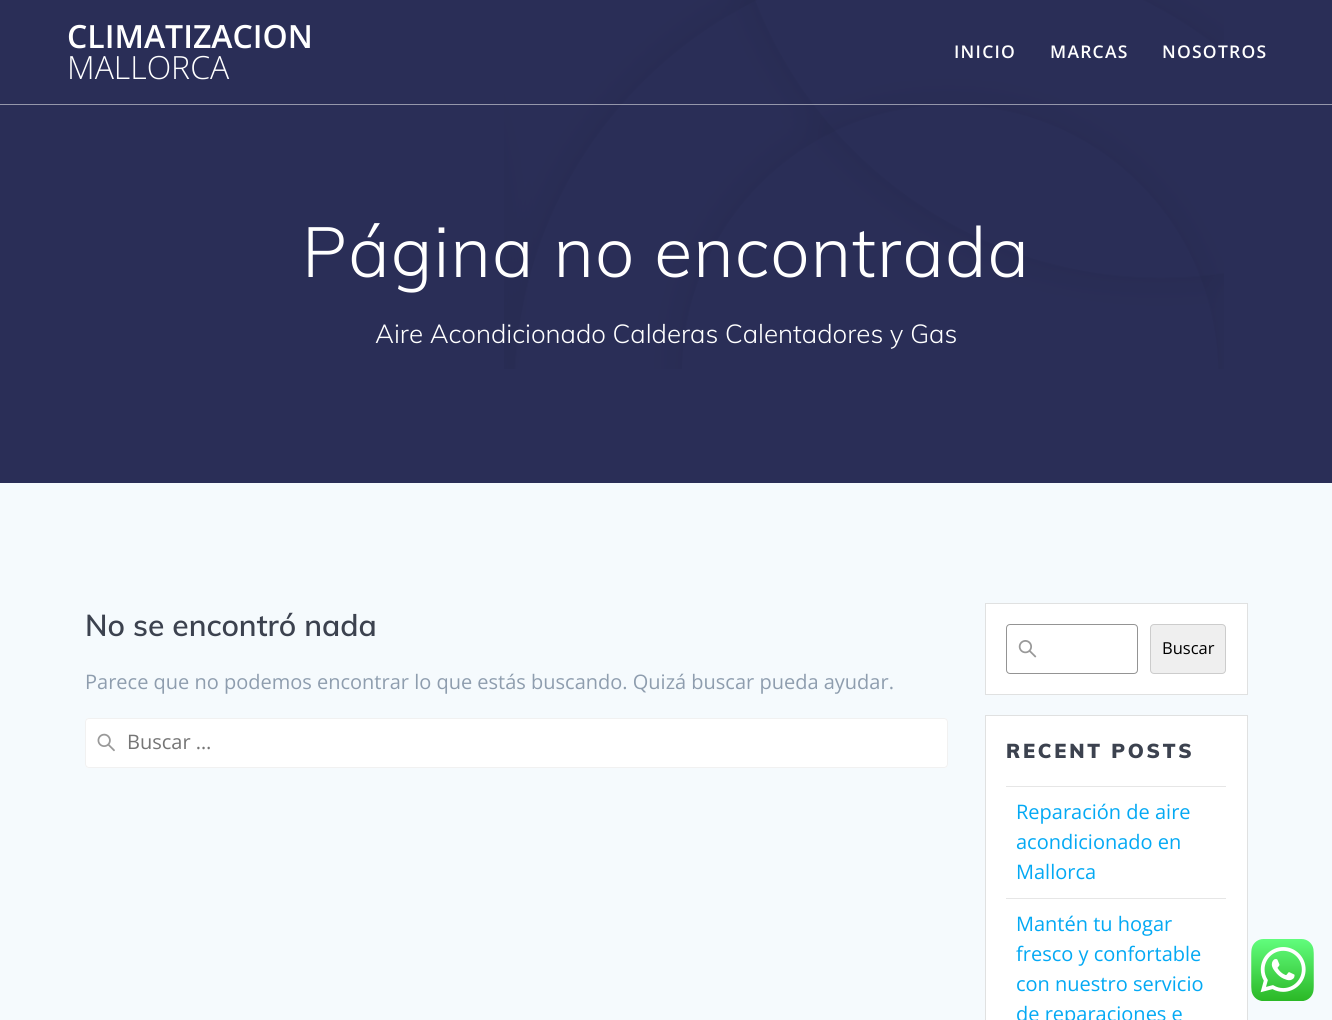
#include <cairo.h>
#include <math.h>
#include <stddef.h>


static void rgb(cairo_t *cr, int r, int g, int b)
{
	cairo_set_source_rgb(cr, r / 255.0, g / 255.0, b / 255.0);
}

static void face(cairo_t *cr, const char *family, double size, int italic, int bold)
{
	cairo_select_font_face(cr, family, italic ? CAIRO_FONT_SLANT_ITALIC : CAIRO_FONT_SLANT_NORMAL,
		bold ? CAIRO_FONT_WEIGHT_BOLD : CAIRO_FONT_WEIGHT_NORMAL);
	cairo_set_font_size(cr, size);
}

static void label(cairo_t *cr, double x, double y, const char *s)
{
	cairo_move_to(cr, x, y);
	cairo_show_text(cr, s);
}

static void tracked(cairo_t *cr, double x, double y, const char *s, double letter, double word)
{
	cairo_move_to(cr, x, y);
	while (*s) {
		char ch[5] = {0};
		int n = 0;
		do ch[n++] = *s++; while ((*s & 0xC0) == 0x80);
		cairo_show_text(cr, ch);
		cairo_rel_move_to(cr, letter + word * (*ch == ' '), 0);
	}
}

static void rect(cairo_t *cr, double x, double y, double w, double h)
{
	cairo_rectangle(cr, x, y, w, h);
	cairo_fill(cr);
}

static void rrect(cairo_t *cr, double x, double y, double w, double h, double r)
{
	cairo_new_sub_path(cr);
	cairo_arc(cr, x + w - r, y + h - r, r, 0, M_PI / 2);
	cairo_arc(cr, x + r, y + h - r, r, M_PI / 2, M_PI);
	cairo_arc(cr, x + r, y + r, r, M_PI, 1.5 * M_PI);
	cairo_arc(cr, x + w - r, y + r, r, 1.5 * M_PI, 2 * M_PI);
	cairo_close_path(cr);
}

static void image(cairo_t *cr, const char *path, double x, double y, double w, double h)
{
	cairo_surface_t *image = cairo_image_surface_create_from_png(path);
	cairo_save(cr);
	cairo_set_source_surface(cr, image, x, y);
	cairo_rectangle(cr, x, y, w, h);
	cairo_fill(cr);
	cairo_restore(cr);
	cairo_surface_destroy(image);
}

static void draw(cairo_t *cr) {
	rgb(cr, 42, 46, 87);
	cairo_paint(cr);
	image(cr, "image0.png", 504, 0, 720, 369);
	cairo_set_source_rgba(cr, 1, 1, 1, 0.5);
	rect(cr, 0, 104, 1332, 1);
	face(cr, "Open Sans SemiBold", 32, 0, 0);
	rgb(cr, 255, 255, 255);
	label(cr, 67, 48, "CLIMATIZACION");
	face(cr, "Open Sans Light", 32, 0, 0);
	label(cr, 67, 79, "MALLORCA");
	face(cr, "Open Sans SemiBold", 17.5, 0, 0);
	tracked(cr, 954, 58, "INICIO", 1.25, 0);
	tracked(cr, 1050, 58, "MARCAS", 1.25, 0);
	tracked(cr, 1162, 58, "NOSOTROS", 1.25, 0);
	face(cr, "Muli Light", 70, 0, 0);
	tracked(cr, 302, 277, "Página no encontrada", 1.1, 0);
	face(cr, "Muli Light", 26, 0, 0);
	label(cr, 375, 343, "Aire Acondicionado Calderas Calentadores y Gas");
	rgb(cr, 245, 250, 253);
	rect(cr, 0, 483, 1332, 537);
	face(cr, "Muli SemiBold", 30, 0, 0);
	rgb(cr, 60, 66, 79);
	label(cr, 85, 636, "No se encontró nada");
	face(cr, "Open Sans", 20, 0, 0);
	rgb(cr, 142, 157, 174);
	label(cr, 85, 689, "Parece que no podemos encontrar lo que estás buscando. Quizá buscar pueda ayudar.");
	rgb(cr, 255, 255, 255);
	rrect(cr, 85, 718, 863, 50, 4);
	cairo_fill(cr);
	image(cr, "image1.png", 97, 733, 18, 19);
	rrect(cr, 85.5, 718.5, 862, 49, 3.5);
	rgb(cr, 241, 241, 241);
	cairo_set_line_width(cr, 1);
	cairo_stroke(cr);
	rgb(cr, 117, 117, 117);
	label(cr, 127, 749, "Buscar …");
	rgb(cr, 255, 255, 255);
	cairo_rectangle(cr, 985.5, 603.5, 262, 91);
	cairo_fill_preserve(cr);
	rgb(cr, 224, 225, 225);
	cairo_stroke(cr);
	image(cr, "image2.png", 1018, 640, 19, 18);
	rrect(cr, 1006.5, 624.5, 131, 49, 3.5);
	rgb(cr, 148, 148, 148);
	cairo_stroke(cr);
	rgb(cr, 239, 239, 239);
	rrect(cr, 1150.5, 624.5, 75, 49, 3.5);
	cairo_fill_preserve(cr);
	rgb(cr, 204, 204, 204);
	cairo_stroke(cr);
	face(cr, "Open Sans", 16.5, 0, 0);
	rgb(cr, 0, 0, 0);
	label(cr, 1162, 654, "Buscar");
	rgb(cr, 255, 255, 255);
	cairo_rectangle(cr, 985.5, 715.5, 262, 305);
	cairo_fill_preserve(cr);
	rgb(cr, 224, 225, 225);
	cairo_stroke(cr);
	face(cr, "Muli Black", 20, 0, 0);
	rgb(cr, 60, 66, 79);
	tracked(cr, 1006, 758, "RECENT POSTS", 2.75, 0);
	rgb(cr, 230, 230, 230);
	rect(cr, 1006, 786, 220, 1);
	face(cr, "Open Sans", 20, 0, 0);
	rgb(cr, 3, 169, 244);
	label(cr, 1016, 819, "Reparación de aire");
	label(cr, 1016, 849, "acondicionado en");
	label(cr, 1016, 879, "Mallorca");
	rgb(cr, 230, 230, 230);
	rect(cr, 1006, 898, 220, 1);
	rgb(cr, 3, 169, 244);
	label(cr, 1016, 931, "Mantén tu hogar");
	label(cr, 1016, 961, "fresco y confortable");
	label(cr, 1016, 991, "con nuestro servicio");
	label(cr, 1016, 1021, "de reparaciones e");
	image(cr, "image3.png", 1251, 939, 63, 62);
}

int main(void) {
	cairo_surface_t *surface = cairo_image_surface_create(CAIRO_FORMAT_RGB24, 1332, 1020);
	cairo_t *cr = cairo_create(surface);
	cairo_font_options_t *options = cairo_font_options_create();
	cairo_font_options_set_hint_metrics(options, CAIRO_HINT_METRICS_OFF);
	cairo_font_options_set_hint_style(options, CAIRO_HINT_STYLE_NONE);
	cairo_set_font_options(cr, options);
	cairo_set_miter_limit(cr, 4);
	draw(cr);
	cairo_surface_write_to_png(surface, "render.png");
	cairo_font_options_destroy(options);
	cairo_destroy(cr);
	cairo_surface_destroy(surface);
	return 0;
}
